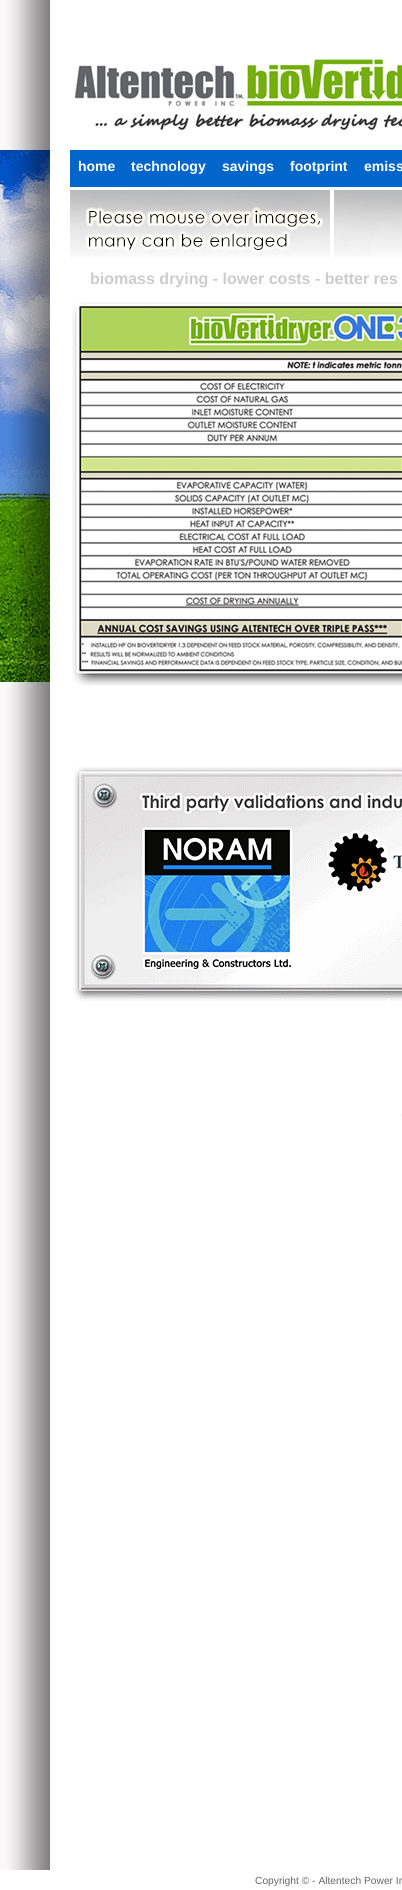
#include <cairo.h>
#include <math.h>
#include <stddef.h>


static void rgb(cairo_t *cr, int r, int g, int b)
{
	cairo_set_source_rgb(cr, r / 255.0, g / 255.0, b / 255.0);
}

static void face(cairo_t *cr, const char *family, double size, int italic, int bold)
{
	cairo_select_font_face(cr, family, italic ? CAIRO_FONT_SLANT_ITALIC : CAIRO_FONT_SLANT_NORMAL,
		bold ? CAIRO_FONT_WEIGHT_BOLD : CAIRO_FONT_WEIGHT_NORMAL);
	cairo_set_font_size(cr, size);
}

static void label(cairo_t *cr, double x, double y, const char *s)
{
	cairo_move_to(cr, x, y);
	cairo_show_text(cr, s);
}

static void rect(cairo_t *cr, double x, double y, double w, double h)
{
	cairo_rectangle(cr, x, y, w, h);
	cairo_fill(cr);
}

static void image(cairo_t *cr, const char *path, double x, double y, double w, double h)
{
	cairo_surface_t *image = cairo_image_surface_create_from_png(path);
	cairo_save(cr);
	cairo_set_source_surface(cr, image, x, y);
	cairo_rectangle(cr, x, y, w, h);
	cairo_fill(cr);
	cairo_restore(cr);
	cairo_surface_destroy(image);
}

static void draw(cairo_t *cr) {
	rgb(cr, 255, 255, 255);
	cairo_paint(cr);
	image(cr, "image0.png", 0, 0, 50, 1870);
	image(cr, "image1.png", 0, 150, 50, 532);
	image(cr, "image2.png", 74, 59, 328, 71);
	rgb(cr, 0, 102, 204);
	rect(cr, 70, 150, 332, 37);
	face(cr, "Liberation Sans", 14, 0, 1);
	rgb(cr, 255, 255, 255);
	label(cr, 78, 171, "home");
	label(cr, 131, 171, "technology");
	label(cr, 222, 171, "savings");
	label(cr, 290, 171, "footprint");
	label(cr, 364, 171, "emiss");
	image(cr, "image3.png", 70, 190, 260, 68);
	image(cr, "image4.png", 334, 190, 68, 68);
	face(cr, "Liberation Sans", 16, 0, 1);
	rgb(cr, 204, 204, 204);
	label(cr, 90, 284, "biomass drying - lower costs - better res");
	image(cr, "image5.png", 72, 302, 330, 384);
	image(cr, "image6.png", 74, 766, 328, 352);
	face(cr, "Liberation Sans", 10.25, 0, 0);
	rgb(cr, 102, 102, 102);
	label(cr, 255, 1884, "Copyright © - Altentech Power In");
}

int main(void) {
	cairo_surface_t *surface = cairo_image_surface_create(CAIRO_FORMAT_RGB24, 402, 1890);
	cairo_t *cr = cairo_create(surface);
	cairo_font_options_t *options = cairo_font_options_create();
	cairo_font_options_set_hint_metrics(options, CAIRO_HINT_METRICS_OFF);
	cairo_font_options_set_hint_style(options, CAIRO_HINT_STYLE_NONE);
	cairo_set_font_options(cr, options);
	cairo_set_miter_limit(cr, 4);
	draw(cr);
	cairo_surface_write_to_png(surface, "render.png");
	cairo_font_options_destroy(options);
	cairo_destroy(cr);
	cairo_surface_destroy(surface);
	return 0;
}
